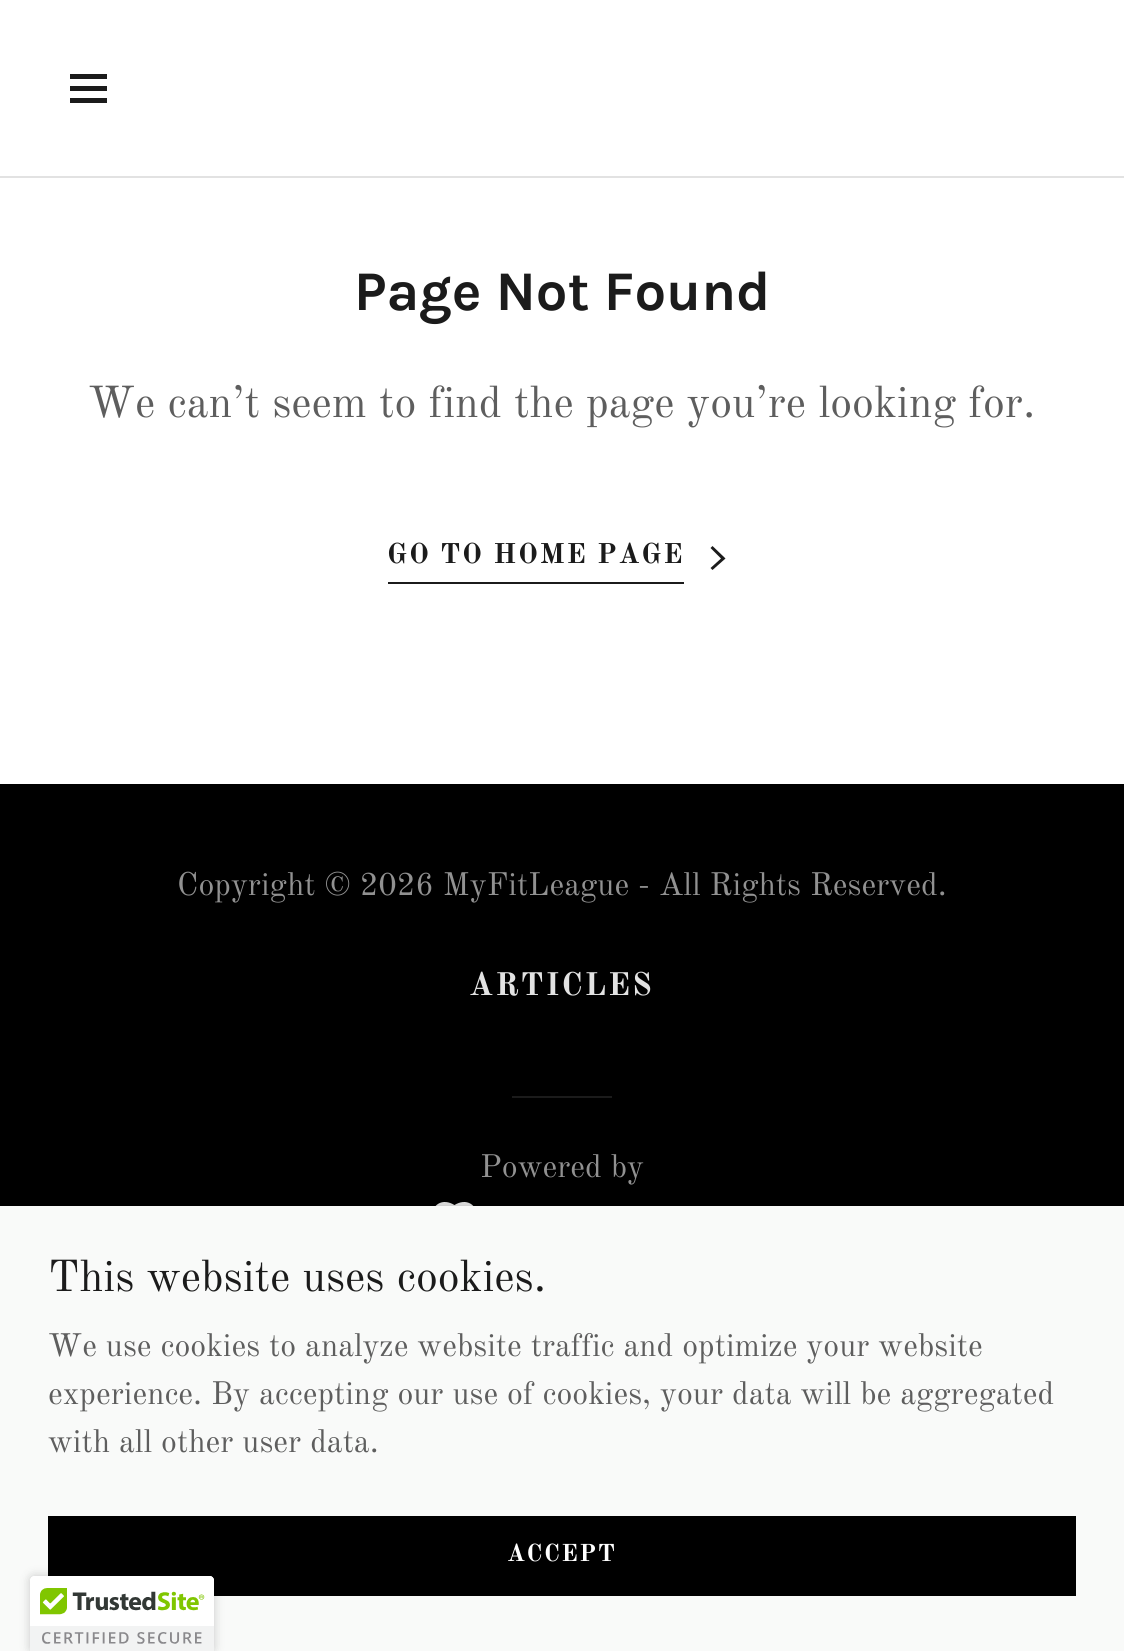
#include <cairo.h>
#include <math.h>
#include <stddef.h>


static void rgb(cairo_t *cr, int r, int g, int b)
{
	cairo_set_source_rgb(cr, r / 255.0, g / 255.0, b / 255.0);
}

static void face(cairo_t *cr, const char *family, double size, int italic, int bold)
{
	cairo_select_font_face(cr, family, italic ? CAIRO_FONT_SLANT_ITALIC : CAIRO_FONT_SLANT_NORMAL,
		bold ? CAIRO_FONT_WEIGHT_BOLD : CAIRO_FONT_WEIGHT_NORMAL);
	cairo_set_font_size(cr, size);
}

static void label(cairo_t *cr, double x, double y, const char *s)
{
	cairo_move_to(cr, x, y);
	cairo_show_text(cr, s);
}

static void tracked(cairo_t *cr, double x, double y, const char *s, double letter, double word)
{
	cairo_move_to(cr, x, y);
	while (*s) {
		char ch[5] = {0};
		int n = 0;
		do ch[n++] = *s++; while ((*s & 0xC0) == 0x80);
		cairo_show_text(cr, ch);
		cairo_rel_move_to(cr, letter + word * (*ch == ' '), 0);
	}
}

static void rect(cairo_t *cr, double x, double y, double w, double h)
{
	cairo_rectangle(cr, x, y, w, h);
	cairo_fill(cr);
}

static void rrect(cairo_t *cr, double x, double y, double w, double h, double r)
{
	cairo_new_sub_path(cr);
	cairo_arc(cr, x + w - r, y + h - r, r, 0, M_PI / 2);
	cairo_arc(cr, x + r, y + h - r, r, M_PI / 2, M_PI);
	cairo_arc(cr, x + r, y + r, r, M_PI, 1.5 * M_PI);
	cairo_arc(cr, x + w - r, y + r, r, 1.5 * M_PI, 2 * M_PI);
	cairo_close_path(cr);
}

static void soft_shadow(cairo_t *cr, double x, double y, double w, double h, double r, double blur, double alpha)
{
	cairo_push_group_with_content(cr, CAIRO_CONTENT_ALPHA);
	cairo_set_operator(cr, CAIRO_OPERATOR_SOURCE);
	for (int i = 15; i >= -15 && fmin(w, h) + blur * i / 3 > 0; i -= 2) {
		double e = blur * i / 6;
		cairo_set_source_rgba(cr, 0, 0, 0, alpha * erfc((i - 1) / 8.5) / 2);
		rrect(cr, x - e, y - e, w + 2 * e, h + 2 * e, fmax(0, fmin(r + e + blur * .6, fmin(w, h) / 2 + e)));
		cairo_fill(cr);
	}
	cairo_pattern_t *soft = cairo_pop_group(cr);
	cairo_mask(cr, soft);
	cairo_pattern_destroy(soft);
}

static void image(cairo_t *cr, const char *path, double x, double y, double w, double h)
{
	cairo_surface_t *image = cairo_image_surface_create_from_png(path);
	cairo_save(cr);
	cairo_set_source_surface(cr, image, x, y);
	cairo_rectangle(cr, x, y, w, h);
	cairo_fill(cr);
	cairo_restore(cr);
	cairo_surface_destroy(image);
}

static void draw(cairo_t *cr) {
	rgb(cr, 0, 0, 0);
	cairo_paint(cr);
	rgb(cr, 255, 255, 255);
	rect(cr, 0, 0, 1124, 176);
	rgb(cr, 27, 27, 27);
	rect(cr, 70, 74, 37, 5);
	rect(cr, 70, 86, 37, 5);
	rect(cr, 70, 98, 37, 5);
	rgb(cr, 226, 226, 226);
	rect(cr, 0, 176, 1124, 2);
	rgb(cr, 255, 255, 255);
	rect(cr, 0, 178, 1124, 606);
	face(cr, "Karla", 56, 0, 1);
	rgb(cr, 27, 27, 27);
	label(cr, 354, 310, "Page Not Found");
	face(cr, "Old Standard TT", 44, 0, 0);
	rgb(cr, 94, 94, 94);
	label(cr, 88, 417, "We can’t seem to find the page you’re looking for.");
	rgb(cr, 27, 27, 27);
	rect(cr, 388, 582, 296, 2);
	face(cr, "Old Standard TT", 28, 0, 1);
	tracked(cr, 387, 563, "GO TO HOME PAGE", 1.75, 0);
	cairo_set_fill_rule(cr, CAIRO_FILL_RULE_EVEN_ODD);
	cairo_new_path(cr);
	cairo_move_to(cr, 712.5, 546);
	cairo_line_to(cr, 710.5, 548);
	cairo_line_to(cr, 721, 558.5);
	cairo_line_to(cr, 710.5, 568);
	cairo_line_to(cr, 712.5, 570);
	cairo_line_to(cr, 725.5, 558.5);
	cairo_line_to(cr, 724.5, 557.5);
	cairo_close_path(cr);
	cairo_fill(cr);
	face(cr, "Old Standard TT", 32, 0, 0);
	rgb(cr, 145, 145, 145);
	label(cr, 177, 895, "Copyright © 2026 MyFitLeague - All Rights Reserved.");
	face(cr, "Old Standard TT", 32, 0, 1);
	rgb(cr, 226, 226, 226);
	tracked(cr, 469, 995, "ARTICLES", 2, 0);
	rgb(cr, 27, 27, 27);
	rect(cr, 512, 1096, 100, 2);
	face(cr, "Old Standard TT", 32, 0, 0);
	rgb(cr, 145, 145, 145);
	label(cr, 480, 1177, "Powered by");
	image(cr, "image0.png", 435, 1202, 39, 4);
	rgb(cr, 0, 0, 0);
	soft_shadow(cr, 0, 1210, 1124, 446, 0, 6, 0.3);
	rgb(cr, 249, 250, 249);
	rect(cr, 0, 1206, 1124, 445);
	face(cr, "Old Standard TT", 44, 0, 0);
	rgb(cr, 27, 27, 27);
	label(cr, 48, 1291, "This website uses cookies.");
	face(cr, "Old Standard TT", 32, 0, 0);
	rgb(cr, 94, 94, 94);
	label(cr, 48, 1356, "We use cookies to analyze website traffic and optimize your website");
	label(cr, 48, 1404, "experience. By accepting our use of cookies, your data will be aggregated");
	label(cr, 48, 1452, "with all other user data.");
	rgb(cr, 0, 0, 0);
	rect(cr, 48, 1516, 1028, 80);
	face(cr, "Old Standard TT", 24, 0, 1);
	rgb(cr, 255, 255, 255);
	tracked(cr, 507, 1561, "ACCEPT", 1.5, 0);
	rgb(cr, 0, 0, 0);
	soft_shadow(cr, 30, 1576, 184, 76, 4, 5, 0.2);
	rgb(cr, 255, 255, 255);
	cairo_new_path(cr);
	cairo_move_to(cr, 34, 1576);
	cairo_line_to(cr, 210, 1576);
	cairo_curve_to(cr, 212, 1576, 214, 1578, 214, 1580);
	cairo_line_to(cr, 214, 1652);
	cairo_line_to(cr, 30, 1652);
	cairo_line_to(cr, 30, 1580);
	cairo_curve_to(cr, 30, 1578, 32, 1576, 34, 1576);
	cairo_close_path(cr);
	cairo_fill(cr);
	image(cr, "image1.png", 30, 1576, 184, 75);
}

int main(void) {
	cairo_surface_t *surface = cairo_image_surface_create(CAIRO_FORMAT_RGB24, 1124, 1651);
	cairo_t *cr = cairo_create(surface);
	cairo_font_options_t *options = cairo_font_options_create();
	cairo_font_options_set_hint_metrics(options, CAIRO_HINT_METRICS_OFF);
	cairo_font_options_set_hint_style(options, CAIRO_HINT_STYLE_NONE);
	cairo_set_font_options(cr, options);
	cairo_set_miter_limit(cr, 4);
	draw(cr);
	cairo_surface_write_to_png(surface, "render.png");
	cairo_font_options_destroy(options);
	cairo_destroy(cr);
	cairo_surface_destroy(surface);
	return 0;
}
